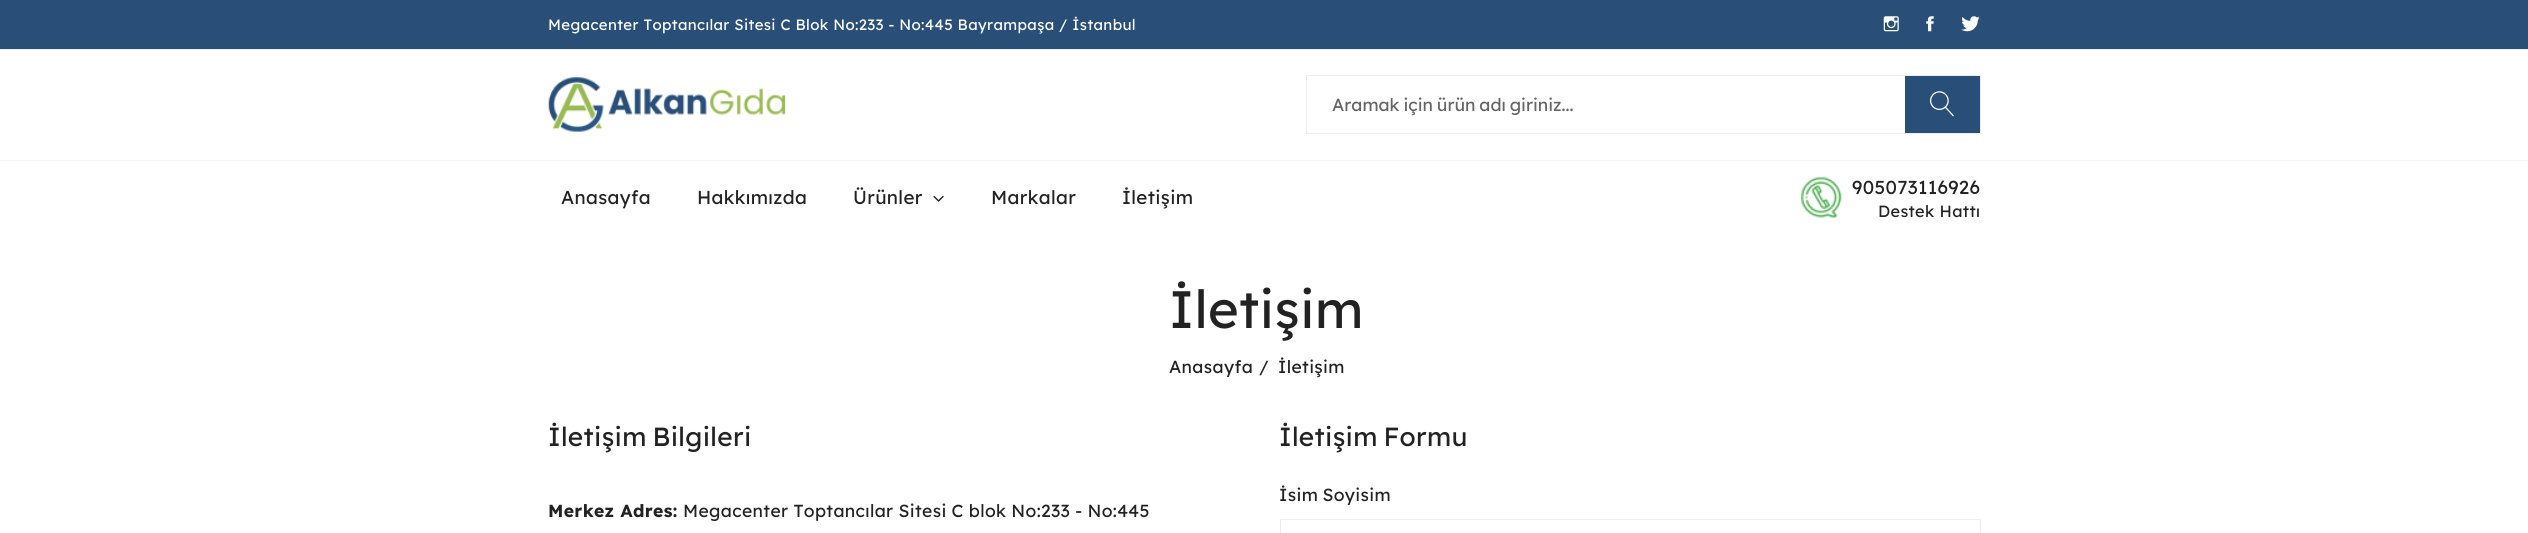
#include <cairo.h>
#include <math.h>
#include <stddef.h>


static void rgb(cairo_t *cr, int r, int g, int b)
{
	cairo_set_source_rgb(cr, r / 255.0, g / 255.0, b / 255.0);
}

static void face(cairo_t *cr, const char *family, double size, int italic, int bold)
{
	cairo_select_font_face(cr, family, italic ? CAIRO_FONT_SLANT_ITALIC : CAIRO_FONT_SLANT_NORMAL,
		bold ? CAIRO_FONT_WEIGHT_BOLD : CAIRO_FONT_WEIGHT_NORMAL);
	cairo_set_font_size(cr, size);
}

static void tracked(cairo_t *cr, double x, double y, const char *s, double letter, double word)
{
	cairo_move_to(cr, x, y);
	while (*s) {
		char ch[5] = {0};
		int n = 0;
		do ch[n++] = *s++; while ((*s & 0xC0) == 0x80);
		cairo_show_text(cr, ch);
		cairo_rel_move_to(cr, letter + word * (*ch == ' '), 0);
	}
}

static void rect(cairo_t *cr, double x, double y, double w, double h)
{
	cairo_rectangle(cr, x, y, w, h);
	cairo_fill(cr);
}

static void image(cairo_t *cr, const char *path, double x, double y, double w, double h)
{
	cairo_surface_t *image = cairo_image_surface_create_from_png(path);
	cairo_save(cr);
	cairo_set_source_surface(cr, image, x, y);
	cairo_rectangle(cr, x, y, w, h);
	cairo_fill(cr);
	cairo_restore(cr);
	cairo_surface_destroy(image);
}

static void draw(cairo_t *cr) {
	rgb(cr, 255, 255, 255);
	cairo_paint(cr);
	rgb(cr, 41, 79, 121);
	rect(cr, 0, 0, 2528, 49);
	rgb(cr, 237, 237, 237);
	rect(cr, 0, 49, 2528, 1);
	face(cr, "Lexend", 15, 0, 0);
	rgb(cr, 255, 255, 255);
	tracked(cr, 548, 30, "Megacenter Toptancılar Sitesi C Blok No:233 - No:445 Bayrampaşa / İstanbul", 0.35, 0);
	image(cr, "image0.png", 1883, 16, 16, 16);
	image(cr, "image1.png", 1926, 16, 8, 16);
	image(cr, "image2.png", 1961, 16, 19, 16);
	image(cr, "image3.png", 548, 77, 238, 55);
	cairo_rectangle(cr, 1306.5, 75.5, 674, 58);
	rgb(cr, 237, 237, 237);
	cairo_set_line_width(cr, 1);
	cairo_stroke(cr);
	face(cr, "Lexend", 17.5, 0, 0);
	rgb(cr, 100, 100, 100);
	tracked(cr, 1332, 111, "Aramak için ürün adı giriniz...", 0, -1);
	rgb(cr, 41, 79, 121);
	rect(cr, 1905, 76, 75, 57);
	image(cr, "image4.png", 1930, 91, 24, 26);
	rgb(cr, 244, 244, 244);
	rect(cr, 0, 160, 2528, 1);
	face(cr, "Lexend", 18.75, 0, 0);
	rgb(cr, 34, 34, 34);
	tracked(cr, 561, 204, "Anasayfa", 0.35, 0);
	tracked(cr, 697, 204, "Hakkımızda", 0.35, 0);
	tracked(cr, 853, 204, "Ürünler", 0.35, 0);
	image(cr, "image5.png", 933, 195, 11, 7);
	tracked(cr, 991, 204, "Markalar", 0.35, 0);
	tracked(cr, 1122, 204, "İletişim", 0.35, 0);
	image(cr, "image6.png", 1801, 177, 41, 41);
	tracked(cr, 1852, 194, "905073116926", 0.35, 0);
	face(cr, "Lexend", 16.25, 0, 0);
	tracked(cr, 1878, 217, "Destek Hattı", 0.35, 0);
	face(cr, "Lexend", 52.5, 0, 0);
	tracked(cr, 1169, 328, "İletişim", 0.35, 0);
	face(cr, "Lexend", 17.5, 0, 0);
	tracked(cr, 1169, 373, "Anasayfa", 0.35, 0);
	tracked(cr, 1259, 373, "/", 0.35, 0);
	tracked(cr, 1278, 373, "İletişim", 0.35, 0);
	face(cr, "Lexend", 26.25, 0, 0);
	tracked(cr, 548, 446, "İletişim Bilgileri", 0.35, -2);
	face(cr, "Lexend", 17.5, 0, 1);
	tracked(cr, 548, 517, "Merkez Adres:", 0.35, 0);
	face(cr, "Lexend", 17.5, 0, 0);
	tracked(cr, 683, 517, "Megacenter Toptancılar Sitesi C blok No:233 - No:445", 0.35, -0.25);
	face(cr, "Lexend", 26.25, 0, 0);
	tracked(cr, 1279, 446, "İletişim Formu", 0.35, -2);
	face(cr, "Lexend", 17.5, 0, 0);
	tracked(cr, 1279, 501, "İsim Soyisim", 0.35, -1);
	cairo_rectangle(cr, 1280.5, 519.5, 700, 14);
	rgb(cr, 237, 237, 237);
	cairo_stroke(cr);
}

int main(void) {
	cairo_surface_t *surface = cairo_image_surface_create(CAIRO_FORMAT_RGB24, 2528, 533);
	cairo_t *cr = cairo_create(surface);
	cairo_font_options_t *options = cairo_font_options_create();
	cairo_font_options_set_hint_metrics(options, CAIRO_HINT_METRICS_OFF);
	cairo_font_options_set_hint_style(options, CAIRO_HINT_STYLE_NONE);
	cairo_set_font_options(cr, options);
	cairo_set_miter_limit(cr, 4);
	draw(cr);
	cairo_surface_write_to_png(surface, "render.png");
	cairo_font_options_destroy(options);
	cairo_destroy(cr);
	cairo_surface_destroy(surface);
	return 0;
}
